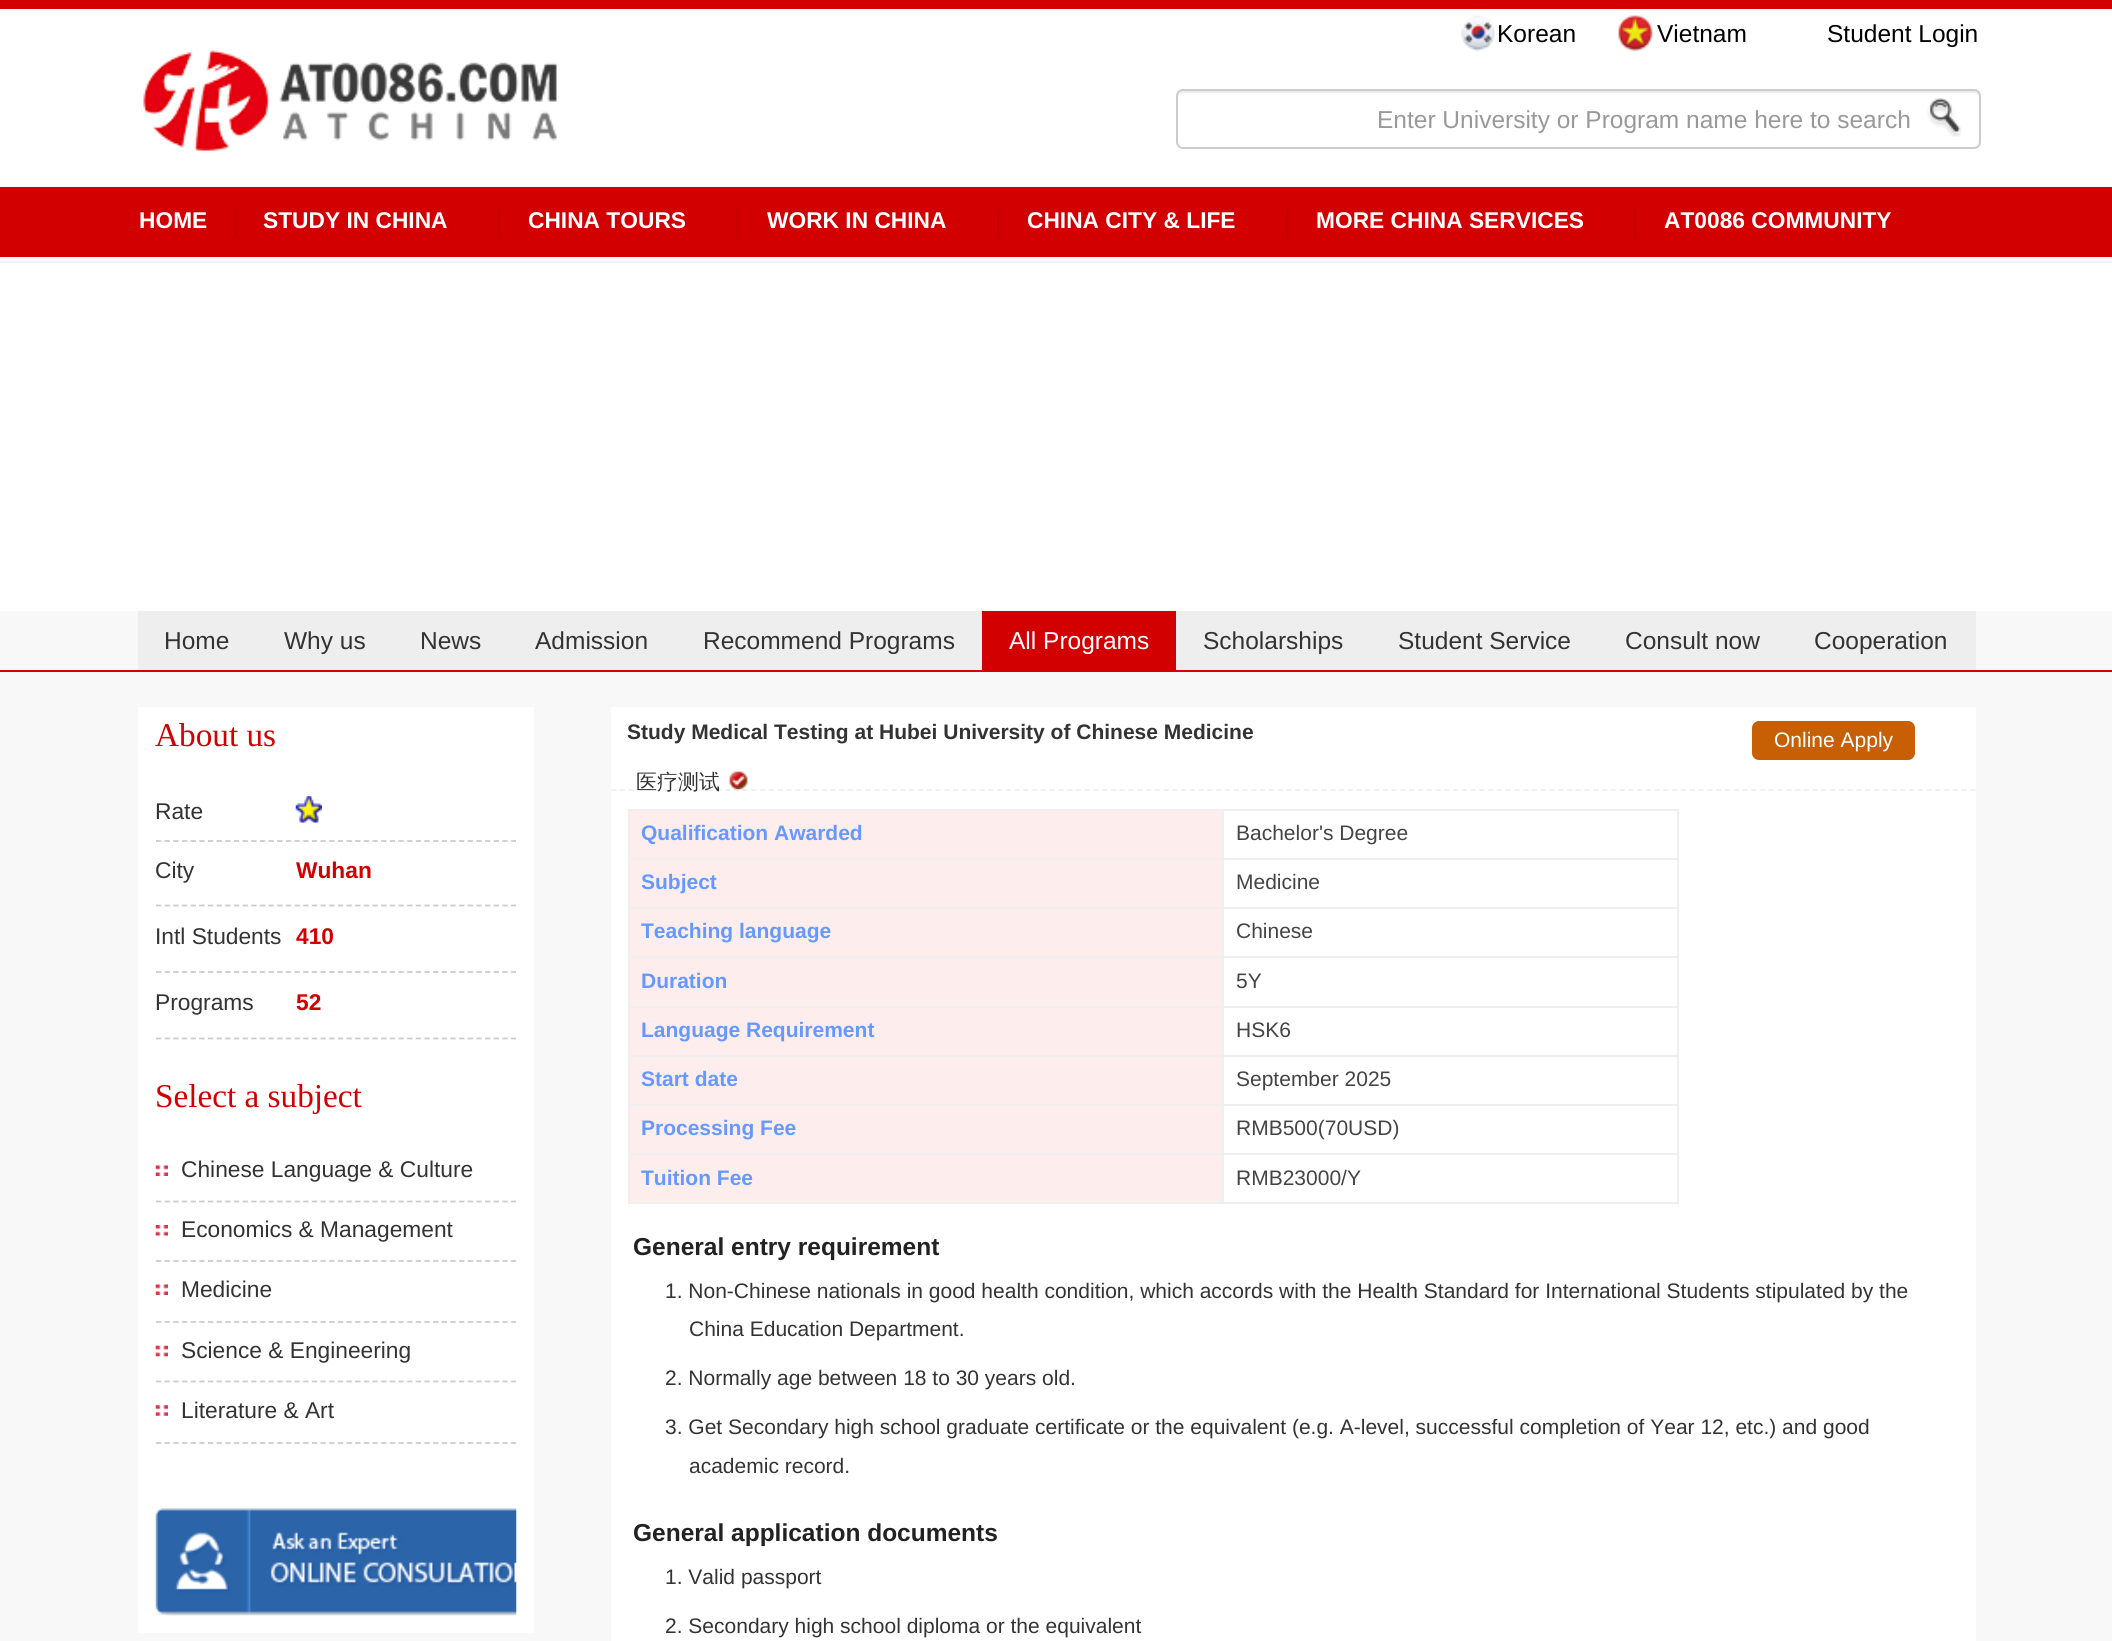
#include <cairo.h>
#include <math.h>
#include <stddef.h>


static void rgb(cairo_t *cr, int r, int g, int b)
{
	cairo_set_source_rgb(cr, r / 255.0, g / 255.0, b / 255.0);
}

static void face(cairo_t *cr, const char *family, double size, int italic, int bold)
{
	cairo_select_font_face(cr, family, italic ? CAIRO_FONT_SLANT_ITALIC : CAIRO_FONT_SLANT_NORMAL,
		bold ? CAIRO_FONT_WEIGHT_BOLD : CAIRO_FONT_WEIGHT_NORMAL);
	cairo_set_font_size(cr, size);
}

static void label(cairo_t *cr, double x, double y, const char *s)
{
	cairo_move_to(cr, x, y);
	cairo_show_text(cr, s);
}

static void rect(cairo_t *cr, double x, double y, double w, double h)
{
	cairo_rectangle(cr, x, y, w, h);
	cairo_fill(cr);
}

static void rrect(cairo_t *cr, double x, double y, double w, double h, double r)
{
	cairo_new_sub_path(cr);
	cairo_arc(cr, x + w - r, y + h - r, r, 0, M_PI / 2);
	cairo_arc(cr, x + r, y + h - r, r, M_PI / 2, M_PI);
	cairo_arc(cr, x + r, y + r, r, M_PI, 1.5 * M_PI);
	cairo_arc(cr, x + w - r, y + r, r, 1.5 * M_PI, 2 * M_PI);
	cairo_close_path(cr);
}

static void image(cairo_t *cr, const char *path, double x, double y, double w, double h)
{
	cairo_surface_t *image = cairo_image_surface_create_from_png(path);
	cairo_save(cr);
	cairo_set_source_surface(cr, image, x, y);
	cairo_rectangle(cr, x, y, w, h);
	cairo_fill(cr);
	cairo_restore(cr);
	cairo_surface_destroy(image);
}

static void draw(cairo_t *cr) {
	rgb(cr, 255, 255, 255);
	cairo_paint(cr);
	rgb(cr, 210, 0, 1);
	rect(cr, 0, 0, 2112, 9);
	image(cr, "image0.png", 143, 50, 414, 101);
	image(cr, "image1.png", 1461, 15, 34, 37);
	face(cr, "Liberation Sans", 24.5, 0, 0);
	rgb(cr, 0, 0, 0);
	label(cr, 1497, 42, "Korean");
	image(cr, "image2.png", 1618, 15, 35, 37);
	label(cr, 1657, 42, "Vietnam");
	label(cr, 1827, 42, "Student Login");
	rgb(cr, 236, 236, 236);
	cairo_new_path(cr);
	cairo_move_to(cr, 1183, 93);
	cairo_line_to(cr, 1974, 93);
	cairo_curve_to(cr, 1977, 93, 1979, 95, 1979, 98);
	cairo_curve_to(cr, 1979, 95, 1978, 91, 1974, 91);
	cairo_line_to(cr, 1183, 91);
	cairo_curve_to(cr, 1179, 91, 1178, 95, 1178, 98);
	cairo_curve_to(cr, 1178, 95, 1180, 93, 1183, 93);
	cairo_close_path(cr);
	cairo_fill(cr);
	rrect(cr, 1177, 90, 803, 58, 6);
	rgb(cr, 204, 204, 204);
	cairo_stroke(cr);
	rgb(cr, 153, 153, 153);
	label(cr, 1377, 128, "Enter University or Program name here to search");
	image(cr, "image3.png", 1927, 98, 35, 39);
	rgb(cr, 210, 0, 0);
	rect(cr, 0, 187, 2112, 70);
	image(cr, "image4.png", 234, 208, 3, 30);
	face(cr, "Liberation Sans", 22.75, 0, 1);
	rgb(cr, 255, 255, 255);
	label(cr, 139, 228, "HOME");
	image(cr, "image5.png", 498, 208, 3, 30);
	label(cr, 263, 228, "STUDY IN CHINA");
	image(cr, "image5.png", 736, 208, 3, 30);
	label(cr, 528, 228, "CHINA TOURS");
	image(cr, "image6.png", 997, 208, 3, 30);
	label(cr, 767, 228, "WORK IN CHINA");
	image(cr, "image7.png", 1286, 208, 2, 30);
	label(cr, 1027, 228, "CHINA CITY & LIFE");
	image(cr, "image6.png", 1634, 208, 3, 30);
	label(cr, 1316, 228, "MORE CHINA SERVICES");
	label(cr, 1664, 228, "AT0086 COMMUNITY");
	rgb(cr, 242, 242, 242);
	rect(cr, 0, 261, 2112, 2);
	rgb(cr, 248, 248, 248);
	rect(cr, 0, 611, 2112, 1030);
	rgb(cr, 210, 0, 0);
	rect(cr, 0, 670, 2112, 2);
	rgb(cr, 238, 238, 238);
	rect(cr, 138, 611, 1838, 59);
	face(cr, "Liberation Sans", 24.5, 0, 0);
	rgb(cr, 51, 51, 51);
	label(cr, 164, 649, "Home");
	label(cr, 284, 649, "Why us");
	label(cr, 420, 649, "News");
	label(cr, 535, 649, "Admission");
	label(cr, 703, 649, "Recommend Programs");
	rgb(cr, 210, 0, 0);
	rect(cr, 982, 611, 194, 59);
	rgb(cr, 255, 255, 255);
	label(cr, 1009, 649, "All Programs");
	rgb(cr, 51, 51, 51);
	label(cr, 1203, 649, "Scholarships");
	label(cr, 1398, 649, "Student Service");
	label(cr, 1625, 649, "Consult now");
	label(cr, 1814, 649, "Cooperation");
	rgb(cr, 255, 255, 255);
	rect(cr, 138, 707, 396, 926);
	face(cr, "Liberation Serif", 33.25, 0, 0);
	rgb(cr, 210, 0, 0);
	label(cr, 155, 746, "About us");
	cairo_new_path(cr);
	cairo_move_to(cr, 156, 841);
	cairo_line_to(cr, 516, 841);
	rgb(cr, 204, 204, 204);
	cairo_set_line_width(cr, 1.8);
	cairo_set_dash(cr, (double[]){5.25, 3.41}, 2, 0);
	cairo_stroke(cr);
	face(cr, "Liberation Sans", 22.75, 0, 0);
	rgb(cr, 51, 51, 51);
	label(cr, 155, 819, "Rate");
	image(cr, "image8.png", 295, 796, 27, 27);
	cairo_new_path(cr);
	cairo_move_to(cr, 156, 905.5);
	cairo_line_to(cr, 516, 905.5);
	rgb(cr, 204, 204, 204);
	cairo_stroke(cr);
	rgb(cr, 51, 51, 51);
	label(cr, 155, 878, "City");
	face(cr, "Liberation Sans", 22.75, 0, 1);
	rgb(cr, 210, 0, 0);
	label(cr, 296, 878, "Wuhan");
	cairo_new_path(cr);
	cairo_move_to(cr, 156, 972);
	cairo_line_to(cr, 516, 972);
	rgb(cr, 204, 204, 204);
	cairo_stroke(cr);
	face(cr, "Liberation Sans", 22.75, 0, 0);
	rgb(cr, 51, 51, 51);
	label(cr, 155, 944, "Intl Students");
	face(cr, "Liberation Sans", 22.75, 0, 1);
	rgb(cr, 210, 0, 0);
	label(cr, 296, 944, "410");
	cairo_new_path(cr);
	cairo_move_to(cr, 156, 1038.5);
	cairo_line_to(cr, 516, 1038.5);
	rgb(cr, 204, 204, 204);
	cairo_stroke(cr);
	face(cr, "Liberation Sans", 22.75, 0, 0);
	rgb(cr, 51, 51, 51);
	label(cr, 155, 1010, "Programs");
	face(cr, "Liberation Sans", 22.75, 0, 1);
	rgb(cr, 210, 0, 0);
	label(cr, 296, 1010, "52");
	face(cr, "Liberation Serif", 33.25, 0, 0);
	label(cr, 155, 1107, "Select a subject");
	image(cr, "image9.png", 155, 1165, 13, 11);
	cairo_new_path(cr);
	cairo_move_to(cr, 156, 1201.5);
	cairo_line_to(cr, 516, 1201.5);
	rgb(cr, 204, 204, 204);
	cairo_stroke(cr);
	face(cr, "Liberation Sans", 22.75, 0, 0);
	rgb(cr, 51, 51, 51);
	label(cr, 181, 1177, "Chinese Language & Culture");
	image(cr, "image10.png", 155, 1225, 13, 11);
	cairo_new_path(cr);
	cairo_move_to(cr, 156, 1261);
	cairo_line_to(cr, 516, 1261);
	rgb(cr, 204, 204, 204);
	cairo_stroke(cr);
	rgb(cr, 51, 51, 51);
	label(cr, 181, 1237, "Economics & Management");
	image(cr, "image9.png", 155, 1284, 13, 11);
	cairo_new_path(cr);
	cairo_move_to(cr, 156, 1322);
	cairo_line_to(cr, 516, 1322);
	rgb(cr, 204, 204, 204);
	cairo_stroke(cr);
	rgb(cr, 51, 51, 51);
	label(cr, 181, 1297, "Medicine");
	image(cr, "image11.png", 155, 1345, 13, 12);
	cairo_new_path(cr);
	cairo_move_to(cr, 156, 1381.5);
	cairo_line_to(cr, 516, 1381.5);
	rgb(cr, 204, 204, 204);
	cairo_stroke(cr);
	rgb(cr, 51, 51, 51);
	label(cr, 181, 1358, "Science & Engineering");
	image(cr, "image12.png", 155, 1405, 13, 11);
	cairo_new_path(cr);
	cairo_move_to(cr, 156, 1443);
	cairo_line_to(cr, 516, 1443);
	rgb(cr, 204, 204, 204);
	cairo_stroke(cr);
	rgb(cr, 51, 51, 51);
	label(cr, 181, 1418, "Literature & Art");
	image(cr, "image13.png", 155, 1508, 362, 108);
	rgb(cr, 255, 255, 255);
	rect(cr, 611, 707, 1365, 934);
	face(cr, "Liberation Sans", 21, 0, 1);
	rgb(cr, 51, 51, 51);
	label(cr, 627, 739, "Study Medical Testing at Hubei University of Chinese Medicine");
	rgb(cr, 199, 96, 4);
	rrect(cr, 1752, 721, 163, 39, 7);
	cairo_fill(cr);
	face(cr, "Liberation Sans", 21, 0, 0);
	rgb(cr, 255, 255, 255);
	label(cr, 1774, 747, "Online Apply");
	rgb(cr, 253, 237, 237);
	rect(cr, 630, 811, 592, 47);
	rgb(cr, 239, 239, 239);
	rect(cr, 1222, 809, 456, 2);
	rect(cr, 1222, 858, 456, 2);
	rect(cr, 1222, 907, 456, 2);
	rect(cr, 1222, 956, 456, 2);
	rect(cr, 1222, 1006, 456, 2);
	rect(cr, 1222, 1055, 456, 2);
	rect(cr, 1222, 1104, 456, 2);
	rect(cr, 1222, 1153, 456, 2);
	rect(cr, 1677, 1153, 2, 51);
	rect(cr, 1222, 1202, 456, 2);
	rect(cr, 1222, 1153, 2, 51);
	rect(cr, 628, 1153, 595, 2);
	rect(cr, 1222, 1104, 2, 51);
	rect(cr, 628, 1104, 595, 2);
	rect(cr, 1222, 1055, 2, 51);
	rect(cr, 628, 1055, 595, 2);
	rect(cr, 1222, 1006, 2, 51);
	rect(cr, 628, 1006, 595, 2);
	rect(cr, 1222, 956, 2, 52);
	rect(cr, 628, 956, 595, 2);
	rect(cr, 1222, 907, 2, 50);
	rect(cr, 628, 907, 595, 2);
	rect(cr, 1222, 858, 2, 50);
	rect(cr, 628, 858, 595, 2);
	rect(cr, 1222, 809, 2, 50);
	rect(cr, 628, 809, 595, 2);
	rect(cr, 628, 1202, 595, 2);
	rect(cr, 628, 1153, 2, 51);
	rect(cr, 628, 1104, 2, 51);
	rect(cr, 628, 1055, 2, 51);
	rect(cr, 628, 1006, 2, 51);
	rect(cr, 628, 956, 2, 52);
	rect(cr, 628, 907, 2, 50);
	rect(cr, 628, 858, 2, 50);
	rect(cr, 628, 809, 2, 50);
	face(cr, "Liberation Sans", 21, 0, 1);
	rgb(cr, 102, 153, 255);
	label(cr, 641, 840, "Qualification Awarded");
	rgb(cr, 239, 239, 239);
	rect(cr, 1677, 1104, 2, 51);
	rect(cr, 1677, 1055, 2, 51);
	rect(cr, 1677, 1006, 2, 51);
	rect(cr, 1677, 956, 2, 52);
	rect(cr, 1677, 907, 2, 50);
	rect(cr, 1677, 858, 2, 50);
	rect(cr, 1677, 809, 2, 50);
	face(cr, "Liberation Sans", 21, 0, 0);
	rgb(cr, 68, 68, 68);
	label(cr, 1236, 840, "Bachelor's Degree");
	rgb(cr, 253, 237, 237);
	rect(cr, 630, 860, 592, 47);
	face(cr, "Liberation Sans", 21, 0, 1);
	rgb(cr, 102, 153, 255);
	label(cr, 641, 889, "Subject");
	face(cr, "Liberation Sans", 21, 0, 0);
	rgb(cr, 68, 68, 68);
	label(cr, 1236, 889, "Medicine");
	rgb(cr, 253, 237, 237);
	rect(cr, 630, 909, 592, 47);
	face(cr, "Liberation Sans", 21, 0, 1);
	rgb(cr, 102, 153, 255);
	label(cr, 641, 938, "Teaching language");
	face(cr, "Liberation Sans", 21, 0, 0);
	rgb(cr, 68, 68, 68);
	label(cr, 1236, 938, "Chinese");
	rgb(cr, 253, 237, 237);
	rect(cr, 630, 958, 592, 48);
	face(cr, "Liberation Sans", 21, 0, 1);
	rgb(cr, 102, 153, 255);
	label(cr, 641, 988, "Duration");
	face(cr, "Liberation Sans", 21, 0, 0);
	rgb(cr, 68, 68, 68);
	label(cr, 1236, 988, "5Y");
	rgb(cr, 253, 237, 237);
	rect(cr, 630, 1008, 592, 47);
	face(cr, "Liberation Sans", 21, 0, 1);
	rgb(cr, 102, 153, 255);
	label(cr, 641, 1037, "Language Requirement");
	face(cr, "Liberation Sans", 21, 0, 0);
	rgb(cr, 68, 68, 68);
	label(cr, 1236, 1037, "HSK6");
	rgb(cr, 253, 237, 237);
	rect(cr, 630, 1057, 592, 47);
	face(cr, "Liberation Sans", 21, 0, 1);
	rgb(cr, 102, 153, 255);
	label(cr, 641, 1086, "Start date");
	face(cr, "Liberation Sans", 21, 0, 0);
	rgb(cr, 68, 68, 68);
	label(cr, 1236, 1086, "September 2025");
	rgb(cr, 253, 237, 237);
	rect(cr, 630, 1106, 592, 47);
	face(cr, "Liberation Sans", 21, 0, 1);
	rgb(cr, 102, 153, 255);
	label(cr, 641, 1135, "Processing Fee");
	face(cr, "Liberation Sans", 21, 0, 0);
	rgb(cr, 68, 68, 68);
	label(cr, 1236, 1135, "RMB500(70USD)");
	rgb(cr, 253, 237, 237);
	rect(cr, 630, 1155, 592, 47);
	face(cr, "Liberation Sans", 21, 0, 1);
	rgb(cr, 102, 153, 255);
	label(cr, 641, 1185, "Tuition Fee");
	face(cr, "Liberation Sans", 21, 0, 0);
	rgb(cr, 68, 68, 68);
	label(cr, 1236, 1185, "RMB23000/Y");
	face(cr, "Liberation Sans", 24.5, 0, 1);
	rgb(cr, 34, 34, 34);
	label(cr, 633, 1255, "General entry requirement");
	face(cr, "Liberation Sans", 21, 0, 0);
	rgb(cr, 51, 51, 51);
	label(cr, 665, 1298, "1. Non-Chinese nationals in good health condition, which accords with the Health Standard for International Students stipulated by the");
	label(cr, 689, 1336, "China Education Department.");
	label(cr, 665, 1385, "2. Normally age between 18 to 30 years old.");
	label(cr, 665, 1434, "3. Get Secondary high school graduate certificate or the equivalent (e.g. A-level, successful completion of Year 12, etc.) and good");
	label(cr, 689, 1473, "academic record.");
	face(cr, "Liberation Sans", 24.5, 0, 1);
	rgb(cr, 34, 34, 34);
	label(cr, 633, 1541, "General application documents");
	face(cr, "Liberation Sans", 21, 0, 0);
	rgb(cr, 51, 51, 51);
	label(cr, 665, 1584, "1. Valid passport");
	label(cr, 665, 1633, "2. Secondary high school diploma or the equivalent");
	cairo_new_path(cr);
	cairo_move_to(cr, 611, 790);
	cairo_line_to(cr, 1976, 790);
	rgb(cr, 239, 239, 239);
	cairo_set_dash(cr, (double[]){5.25, 3.52}, 2, 0);
	cairo_stroke(cr);
	face(cr, "WenQuanYi Zen Hei Medium", 21, 0, 0);
	rgb(cr, 51, 51, 51);
	label(cr, 636, 789, "医疗测试");
	image(cr, "image14.png", 729, 771, 19, 19);
}

int main(void) {
	cairo_surface_t *surface = cairo_image_surface_create(CAIRO_FORMAT_RGB24, 2112, 1641);
	cairo_t *cr = cairo_create(surface);
	cairo_font_options_t *options = cairo_font_options_create();
	cairo_font_options_set_hint_metrics(options, CAIRO_HINT_METRICS_OFF);
	cairo_font_options_set_hint_style(options, CAIRO_HINT_STYLE_NONE);
	cairo_set_font_options(cr, options);
	cairo_set_miter_limit(cr, 4);
	draw(cr);
	cairo_surface_write_to_png(surface, "render.png");
	cairo_font_options_destroy(options);
	cairo_destroy(cr);
	cairo_surface_destroy(surface);
	return 0;
}
